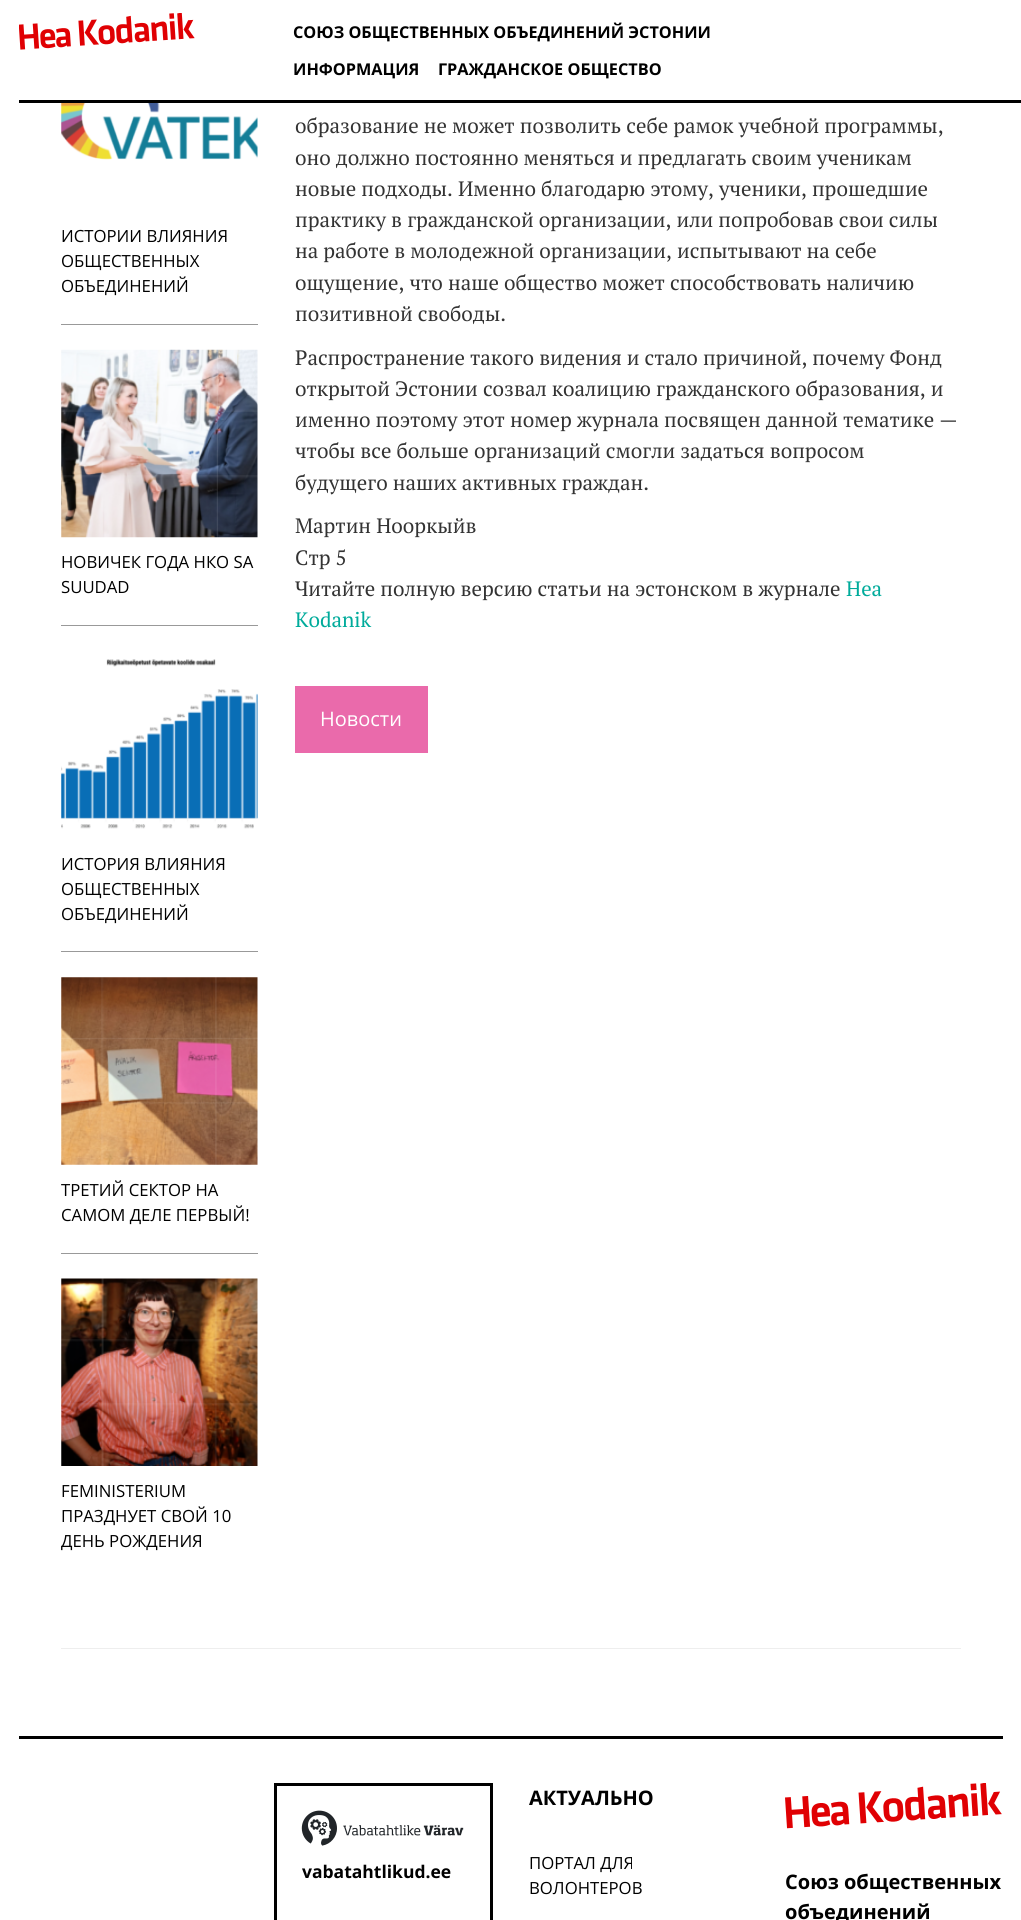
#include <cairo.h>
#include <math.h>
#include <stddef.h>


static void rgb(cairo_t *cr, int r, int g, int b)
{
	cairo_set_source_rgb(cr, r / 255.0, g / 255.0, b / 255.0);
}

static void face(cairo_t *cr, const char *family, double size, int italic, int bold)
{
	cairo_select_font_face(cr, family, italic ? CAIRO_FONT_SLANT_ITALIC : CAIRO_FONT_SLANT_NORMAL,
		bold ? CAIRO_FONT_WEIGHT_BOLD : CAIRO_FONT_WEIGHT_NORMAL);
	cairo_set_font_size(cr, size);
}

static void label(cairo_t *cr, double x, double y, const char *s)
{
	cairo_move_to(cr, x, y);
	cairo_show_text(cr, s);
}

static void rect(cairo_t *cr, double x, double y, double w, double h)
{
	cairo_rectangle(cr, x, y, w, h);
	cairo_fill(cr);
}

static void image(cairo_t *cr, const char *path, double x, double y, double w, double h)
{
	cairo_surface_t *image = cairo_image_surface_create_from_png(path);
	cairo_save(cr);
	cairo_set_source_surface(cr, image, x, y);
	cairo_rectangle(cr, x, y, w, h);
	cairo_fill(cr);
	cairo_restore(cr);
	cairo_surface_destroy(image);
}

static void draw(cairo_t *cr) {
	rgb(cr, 255, 255, 255);
	cairo_paint(cr);
	rgb(cr, 0, 0, 0);
	rect(cr, 19, 100, 1002, 3);
	image(cr, "image0.png", 19, 13, 176, 37);
	face(cr, "Open Sans", 16.25, 0, 1);
	label(cr, 293, 38, "СОЮЗ ОБЩЕСТВЕННЫХ ОБЪЕДИНЕНИЙ ЭСТОНИИ");
	label(cr, 293, 75, "ИНФОРМАЦИЯ");
	label(cr, 438, 75, "ГРАЖДАНСКОE ОБЩЕСТВO");
	rgb(cr, 153, 153, 153);
	rect(cr, 61, 324, 197, 1);
	image(cr, "image1.png", 61, 103, 197, 57);
	face(cr, "Open Sans", 16.75, 0, 0);
	rgb(cr, 0, 0, 0);
	label(cr, 61, 242, "ИСТОРИИ ВЛИЯНИЯ");
	label(cr, 61, 267, "ОБЩЕСТВЕННЫХ");
	label(cr, 61, 292, "ОБЪЕДИНЕНИЙ");
	rgb(cr, 153, 153, 153);
	rect(cr, 61, 625, 197, 1);
	image(cr, "image2.png", 61, 349, 197, 189);
	rgb(cr, 0, 0, 0);
	label(cr, 61, 568, "НОВИЧЕК ГОДА НКО SA");
	label(cr, 61, 593, "SUUDAD");
	rgb(cr, 153, 153, 153);
	rect(cr, 61, 951, 197, 1);
	image(cr, "image3.png", 61, 659, 197, 170);
	rgb(cr, 0, 0, 0);
	label(cr, 61, 870, "ИСТОРИЯ ВЛИЯНИЯ");
	label(cr, 61, 895, "ОБЩЕСТВЕННЫХ");
	label(cr, 61, 920, "ОБЪЕДИНЕНИЙ");
	rgb(cr, 153, 153, 153);
	rect(cr, 61, 1253, 197, 1);
	image(cr, "image4.png", 61, 977, 197, 188);
	rgb(cr, 0, 0, 0);
	label(cr, 61, 1196, "ТРЕТИЙ СЕКТОР НА");
	label(cr, 61, 1221, "САМОМ ДЕЛЕ ПЕРВЫЙ!");
	image(cr, "image5.png", 61, 1278, 197, 188);
	label(cr, 61, 1497, "FEMINISTERIUM");
	label(cr, 61, 1522, "ПРАЗДНУЕТ СВОЙ 10");
	label(cr, 61, 1547, "ДЕНЬ РОЖДЕНИЯ");
	face(cr, "PT Serif", 20.8, 0, 0);
	rgb(cr, 51, 51, 51);
	label(cr, 295, 133, "образование не может позволить себе рамок учебной программы,");
	label(cr, 295, 165, "оно должно постоянно меняться и предлагать своим ученикам");
	label(cr, 295, 196, "новые подходы. Именно благодарю этому, ученики, прошедшие");
	label(cr, 295, 227, "практику в гражданской организации, или попробовав свои силы");
	label(cr, 295, 258, "на работе в молодежной организации, испытывают на себе");
	label(cr, 295, 290, "ощущение, что наше общество может способствовать наличию");
	label(cr, 295, 321, "позитивной свободы.");
	label(cr, 295, 365, "Распространение такого видения и стало причиной, почему Фонд");
	label(cr, 295, 396, "открытой Эстонии созвал коалицию гражданского образования, и");
	label(cr, 295, 427, "именно поэтому этот номер журнала посвящен данной тематике —");
	label(cr, 295, 458, "чтобы все больше организаций смогли задаться вопросом");
	label(cr, 295, 490, "будущего наших активных граждан.");
	label(cr, 295, 533, "Мартин Нооркыйв");
	label(cr, 295, 565, "Стр 5");
	label(cr, 295, 596, "Читайте полную версию статьи на эстонском в журнале");
	rgb(cr, 0, 171, 155);
	label(cr, 846, 596, "Hea");
	label(cr, 295, 627, "Kodanik");
	rgb(cr, 234, 106, 171);
	rect(cr, 295, 686, 133, 67);
	face(cr, "Open Sans", 20, 0, 0);
	rgb(cr, 255, 255, 255);
	label(cr, 320, 726, "Новости");
	rgb(cr, 238, 238, 238);
	rect(cr, 61, 1648, 900, 1);
	rgb(cr, 0, 0, 0);
	rect(cr, 19, 1736, 984, 3);
	cairo_rectangle(cr, 275.5, 1784.5, 216, 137);
	cairo_set_line_width(cr, 3);
	cairo_stroke(cr);
	image(cr, "image6.png", 301, 1810, 163, 36);
	face(cr, "Open Sans", 17.5, 0, 1);
	label(cr, 302, 1878, "vabatahtlikud.ee");
	face(cr, "Open Sans", 20, 0, 1);
	label(cr, 529, 1805, "АКТУАЛЬНО");
	face(cr, "Open Sans", 16.75, 0, 0);
	label(cr, 529, 1869, "ПОРТАЛ ДЛЯ");
	label(cr, 529, 1894, "ВОЛОНТЕРОВ");
	image(cr, "image7.png", 785, 1783, 217, 46);
	face(cr, "Open Sans", 20, 0, 1);
	label(cr, 785, 1889, "Союз общественных");
	label(cr, 785, 1919, "объединений");
}

int main(void) {
	cairo_surface_t *surface = cairo_image_surface_create(CAIRO_FORMAT_RGB24, 1021, 1920);
	cairo_t *cr = cairo_create(surface);
	cairo_font_options_t *options = cairo_font_options_create();
	cairo_font_options_set_hint_metrics(options, CAIRO_HINT_METRICS_OFF);
	cairo_font_options_set_hint_style(options, CAIRO_HINT_STYLE_NONE);
	cairo_set_font_options(cr, options);
	cairo_set_miter_limit(cr, 4);
	draw(cr);
	cairo_surface_write_to_png(surface, "render.png");
	cairo_font_options_destroy(options);
	cairo_destroy(cr);
	cairo_surface_destroy(surface);
	return 0;
}
